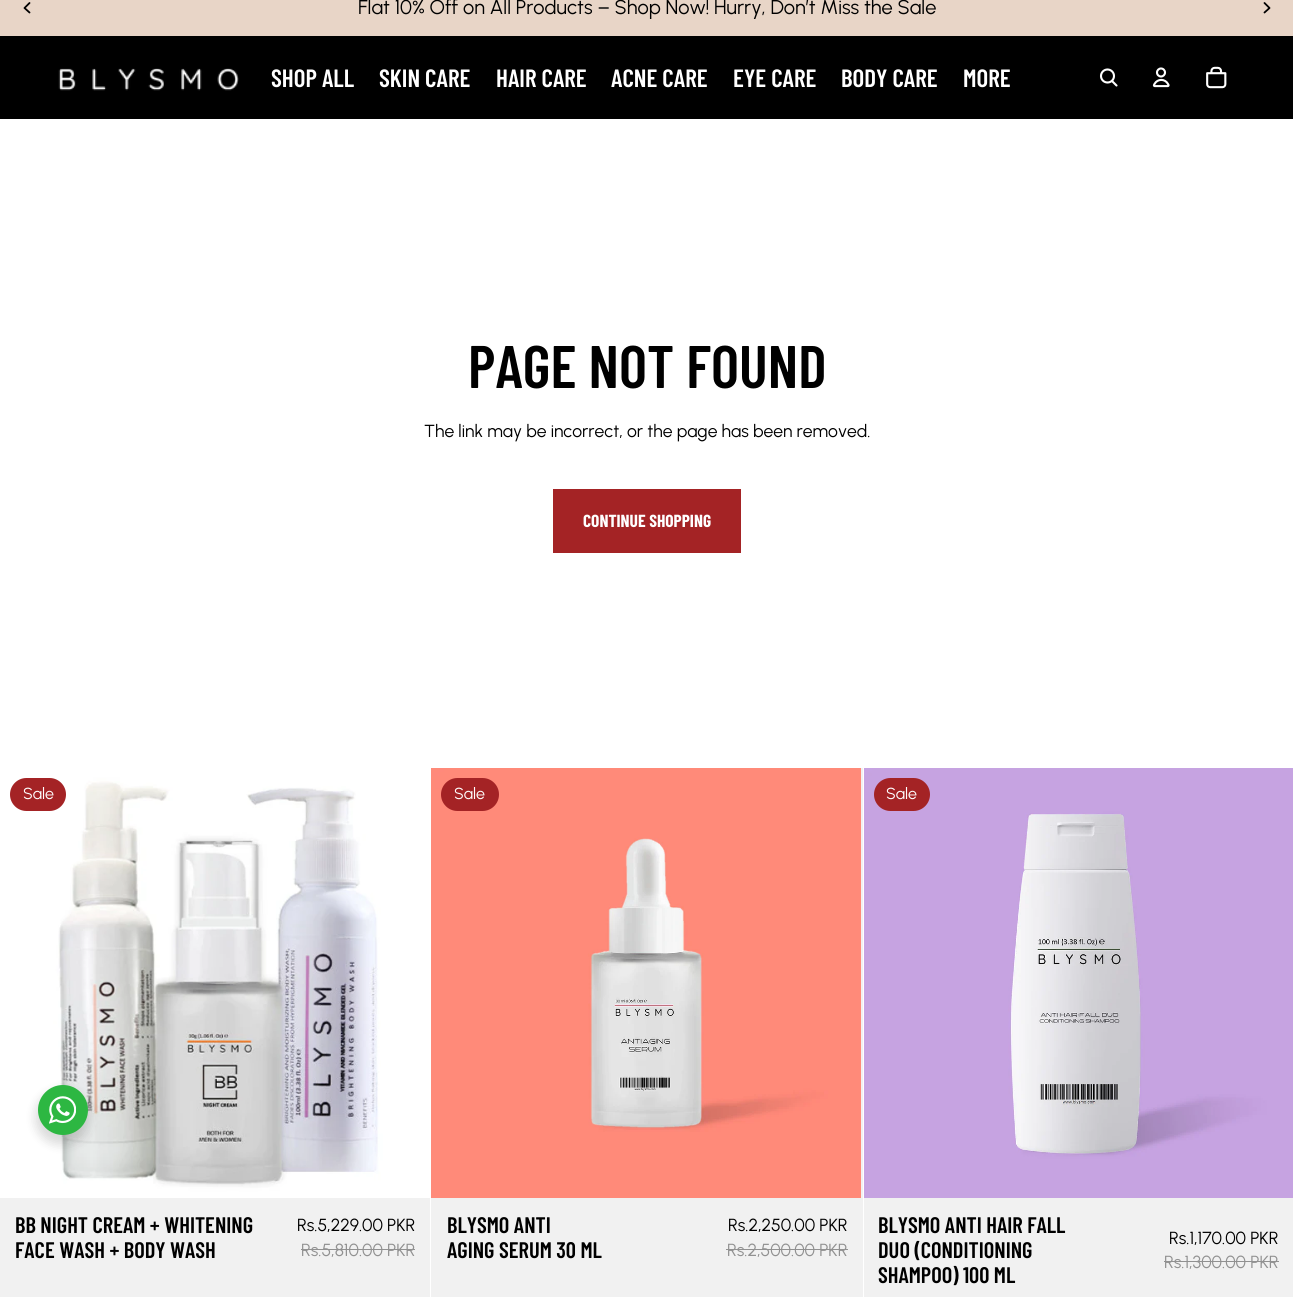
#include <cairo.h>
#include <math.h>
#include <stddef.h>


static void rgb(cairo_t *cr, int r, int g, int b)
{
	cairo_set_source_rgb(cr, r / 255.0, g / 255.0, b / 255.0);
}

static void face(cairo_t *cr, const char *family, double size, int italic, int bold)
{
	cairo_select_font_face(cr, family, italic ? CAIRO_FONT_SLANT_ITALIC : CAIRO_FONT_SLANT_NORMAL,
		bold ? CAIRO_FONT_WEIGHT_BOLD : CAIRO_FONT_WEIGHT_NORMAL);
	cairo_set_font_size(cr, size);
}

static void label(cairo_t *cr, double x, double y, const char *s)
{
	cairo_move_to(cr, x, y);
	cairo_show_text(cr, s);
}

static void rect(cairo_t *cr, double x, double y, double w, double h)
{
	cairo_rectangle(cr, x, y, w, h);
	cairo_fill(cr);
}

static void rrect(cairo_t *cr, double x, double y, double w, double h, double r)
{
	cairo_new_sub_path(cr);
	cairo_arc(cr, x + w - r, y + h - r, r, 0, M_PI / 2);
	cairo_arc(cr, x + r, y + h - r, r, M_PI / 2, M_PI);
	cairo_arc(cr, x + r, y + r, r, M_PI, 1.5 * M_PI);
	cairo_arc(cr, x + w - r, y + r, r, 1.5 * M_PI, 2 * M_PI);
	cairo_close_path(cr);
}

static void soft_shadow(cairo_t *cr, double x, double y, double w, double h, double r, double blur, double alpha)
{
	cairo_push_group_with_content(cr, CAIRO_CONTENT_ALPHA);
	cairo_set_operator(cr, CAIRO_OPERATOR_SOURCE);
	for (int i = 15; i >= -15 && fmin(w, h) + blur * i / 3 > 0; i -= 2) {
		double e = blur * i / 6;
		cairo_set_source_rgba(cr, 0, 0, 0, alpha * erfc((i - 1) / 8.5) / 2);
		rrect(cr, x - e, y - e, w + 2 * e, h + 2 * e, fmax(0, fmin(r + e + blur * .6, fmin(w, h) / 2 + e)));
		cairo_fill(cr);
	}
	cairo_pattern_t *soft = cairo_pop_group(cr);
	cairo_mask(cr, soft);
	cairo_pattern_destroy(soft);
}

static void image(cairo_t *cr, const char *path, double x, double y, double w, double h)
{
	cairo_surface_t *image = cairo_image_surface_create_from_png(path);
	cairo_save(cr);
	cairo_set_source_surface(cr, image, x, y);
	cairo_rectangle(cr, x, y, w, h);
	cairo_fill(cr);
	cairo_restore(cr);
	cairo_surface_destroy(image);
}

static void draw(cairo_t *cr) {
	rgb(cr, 255, 255, 255);
	cairo_paint(cr);
	rgb(cr, 232, 213, 199);
	rect(cr, 0, 0, 1293, 36);
	face(cr, "Urbanist", 20, 0, 0);
	rgb(cr, 0, 0, 0);
	label(cr, 358, 14, "Flat 10% Off on All Products – Shop Now! Hurry, Don’t Miss the Sale");
	cairo_new_path(cr);
	cairo_move_to(cr, 29.5, 3);
	cairo_line_to(cr, 24.5, 8);
	cairo_line_to(cr, 29.5, 12.5);
	cairo_set_line_width(cr, 1.8);
	cairo_set_line_cap(cr, CAIRO_LINE_CAP_ROUND);
	cairo_set_line_join(cr, CAIRO_LINE_JOIN_ROUND);
	cairo_stroke(cr);
	cairo_new_path(cr);
	cairo_move_to(cr, 1264.5, 3);
	cairo_line_to(cr, 1269.5, 8);
	cairo_line_to(cr, 1264.5, 12.5);
	cairo_stroke(cr);
	rect(cr, 0, 36, 1293, 83);
	image(cr, "image0.png", 58, 68, 181, 23);
	face(cr, "Barlow Condensed SemiBold", 25, 0, 0);
	rgb(cr, 255, 255, 255);
	label(cr, 271, 87, "SHOP ALL");
	label(cr, 379, 87, "SKIN CARE");
	label(cr, 496, 87, "HAIR CARE");
	label(cr, 611, 87, "ACNE CARE");
	label(cr, 733, 87, "EYE CARE");
	label(cr, 841, 87, "BODY CARE");
	label(cr, 963, 87, "MORE");
	cairo_new_path(cr);
	cairo_arc(cr, 1107.5, 76, 6.5, 0, 2 * M_PI);
	cairo_set_line_width(cr, 2.1);
	cairo_set_line_cap(cr, CAIRO_LINE_CAP_BUTT);
	cairo_set_line_join(cr, CAIRO_LINE_JOIN_MITER);
	cairo_stroke(cr);
	cairo_new_path(cr);
	cairo_move_to(cr, 1112, 81);
	cairo_line_to(cr, 1116.5, 85.5);
	cairo_set_line_cap(cr, CAIRO_LINE_CAP_ROUND);
	cairo_set_line_join(cr, CAIRO_LINE_JOIN_ROUND);
	cairo_stroke(cr);
	image(cr, "image1.png", 1152, 67, 18, 21);
	image(cr, "image2.png", 1206, 66, 21, 23);
	face(cr, "Barlow Condensed SemiBold", 60, 0, 0);
	rgb(cr, 0, 0, 0);
	label(cr, 468, 388, "PAGE NOT FOUND");
	face(cr, "Urbanist", 17.5, 0, 0);
	label(cr, 424, 437, "The link may be incorrect, or the page has been removed.");
	rgb(cr, 164, 35, 37);
	rect(cr, 553, 489, 188, 64);
	face(cr, "Barlow Condensed", 17.5, 0, 1);
	rgb(cr, 255, 255, 255);
	label(cr, 583, 527, "CONTINUE SHOPPING");
	rgb(cr, 241, 241, 241);
	rect(cr, 0, 1198, 430, 99);
	image(cr, "image3.png", 0, 768, 430, 430);
	rgb(cr, 164, 35, 37);
	rrect(cr, 10, 778, 56, 33, 16.5);
	cairo_fill(cr);
	face(cr, "Urbanist", 16, 0, 0);
	rgb(cr, 255, 255, 255);
	label(cr, 23, 799, "Sale");
	face(cr, "Barlow Condensed SemiBold", 22.5, 0, 0);
	rgb(cr, 0, 0, 0);
	label(cr, 15, 1233, "BB NIGHT CREAM + WHITENING");
	label(cr, 15, 1258, "FACE WASH + BODY WASH");
	face(cr, "Urbanist", 17.5, 0, 0);
	label(cr, 297, 1231, "Rs.5,229.00 PKR");
	rgb(cr, 145, 145, 145);
	label(cr, 301, 1256, "Rs.5,810.00 PKR");
	rect(cr, 301, 1249, 114, 1);
	rgb(cr, 241, 241, 241);
	rect(cr, 431, 768, 432, 529);
	image(cr, "image4.png", 431, 768, 430, 430);
	rgb(cr, 164, 35, 37);
	rrect(cr, 441, 778, 58, 33, 16.5);
	cairo_fill(cr);
	face(cr, "Urbanist", 16, 0, 0);
	rgb(cr, 255, 255, 255);
	label(cr, 454, 799, "Sale");
	face(cr, "Barlow Condensed SemiBold", 22.5, 0, 0);
	rgb(cr, 0, 0, 0);
	label(cr, 447, 1233, "BLYSMO ANTI");
	label(cr, 447, 1258, "AGING SERUM 30 ML");
	face(cr, "Urbanist", 17.5, 0, 0);
	label(cr, 728, 1231, "Rs.2,250.00 PKR");
	rgb(cr, 145, 145, 145);
	label(cr, 727, 1256, "Rs.2,500.00 PKR");
	rect(cr, 726, 1249, 122, 1);
	rgb(cr, 241, 241, 241);
	rect(cr, 864, 1198, 429, 99);
	image(cr, "image5.png", 864, 768, 429, 430);
	rgb(cr, 164, 35, 37);
	rrect(cr, 874, 778, 56, 33, 16.5);
	cairo_fill(cr);
	face(cr, "Urbanist", 16, 0, 0);
	rgb(cr, 255, 255, 255);
	label(cr, 886, 799, "Sale");
	face(cr, "Barlow Condensed SemiBold", 22.5, 0, 0);
	rgb(cr, 0, 0, 0);
	label(cr, 878, 1233, "BLYSMO ANTI HAIR FALL");
	label(cr, 878, 1258, "DUO (CONDITIONING");
	label(cr, 878, 1283, "SHAMPOO) 100 ML");
	face(cr, "Urbanist", 17.5, 0, 0);
	label(cr, 1169, 1244, "Rs.1,170.00 PKR");
	rgb(cr, 145, 145, 145);
	label(cr, 1164, 1268, "Rs.1,300.00 PKR");
	rect(cr, 1164, 1261, 115, 1);
	rgb(cr, 0, 0, 0);
	soft_shadow(cr, 35, 1090, 55, 55, 27.5, 5, 0.14);
	rgb(cr, 45, 183, 66);
	cairo_arc(cr, 63, 1110, 25, 0, 2 * M_PI);
	cairo_fill(cr);
	image(cr, "image6.png", 49, 1096, 27, 28);
}

int main(void) {
	cairo_surface_t *surface = cairo_image_surface_create(CAIRO_FORMAT_RGB24, 1293, 1297);
	cairo_t *cr = cairo_create(surface);
	cairo_font_options_t *options = cairo_font_options_create();
	cairo_font_options_set_hint_metrics(options, CAIRO_HINT_METRICS_OFF);
	cairo_font_options_set_hint_style(options, CAIRO_HINT_STYLE_NONE);
	cairo_set_font_options(cr, options);
	cairo_set_miter_limit(cr, 4);
	draw(cr);
	cairo_surface_write_to_png(surface, "render.png");
	cairo_font_options_destroy(options);
	cairo_destroy(cr);
	cairo_surface_destroy(surface);
	return 0;
}
